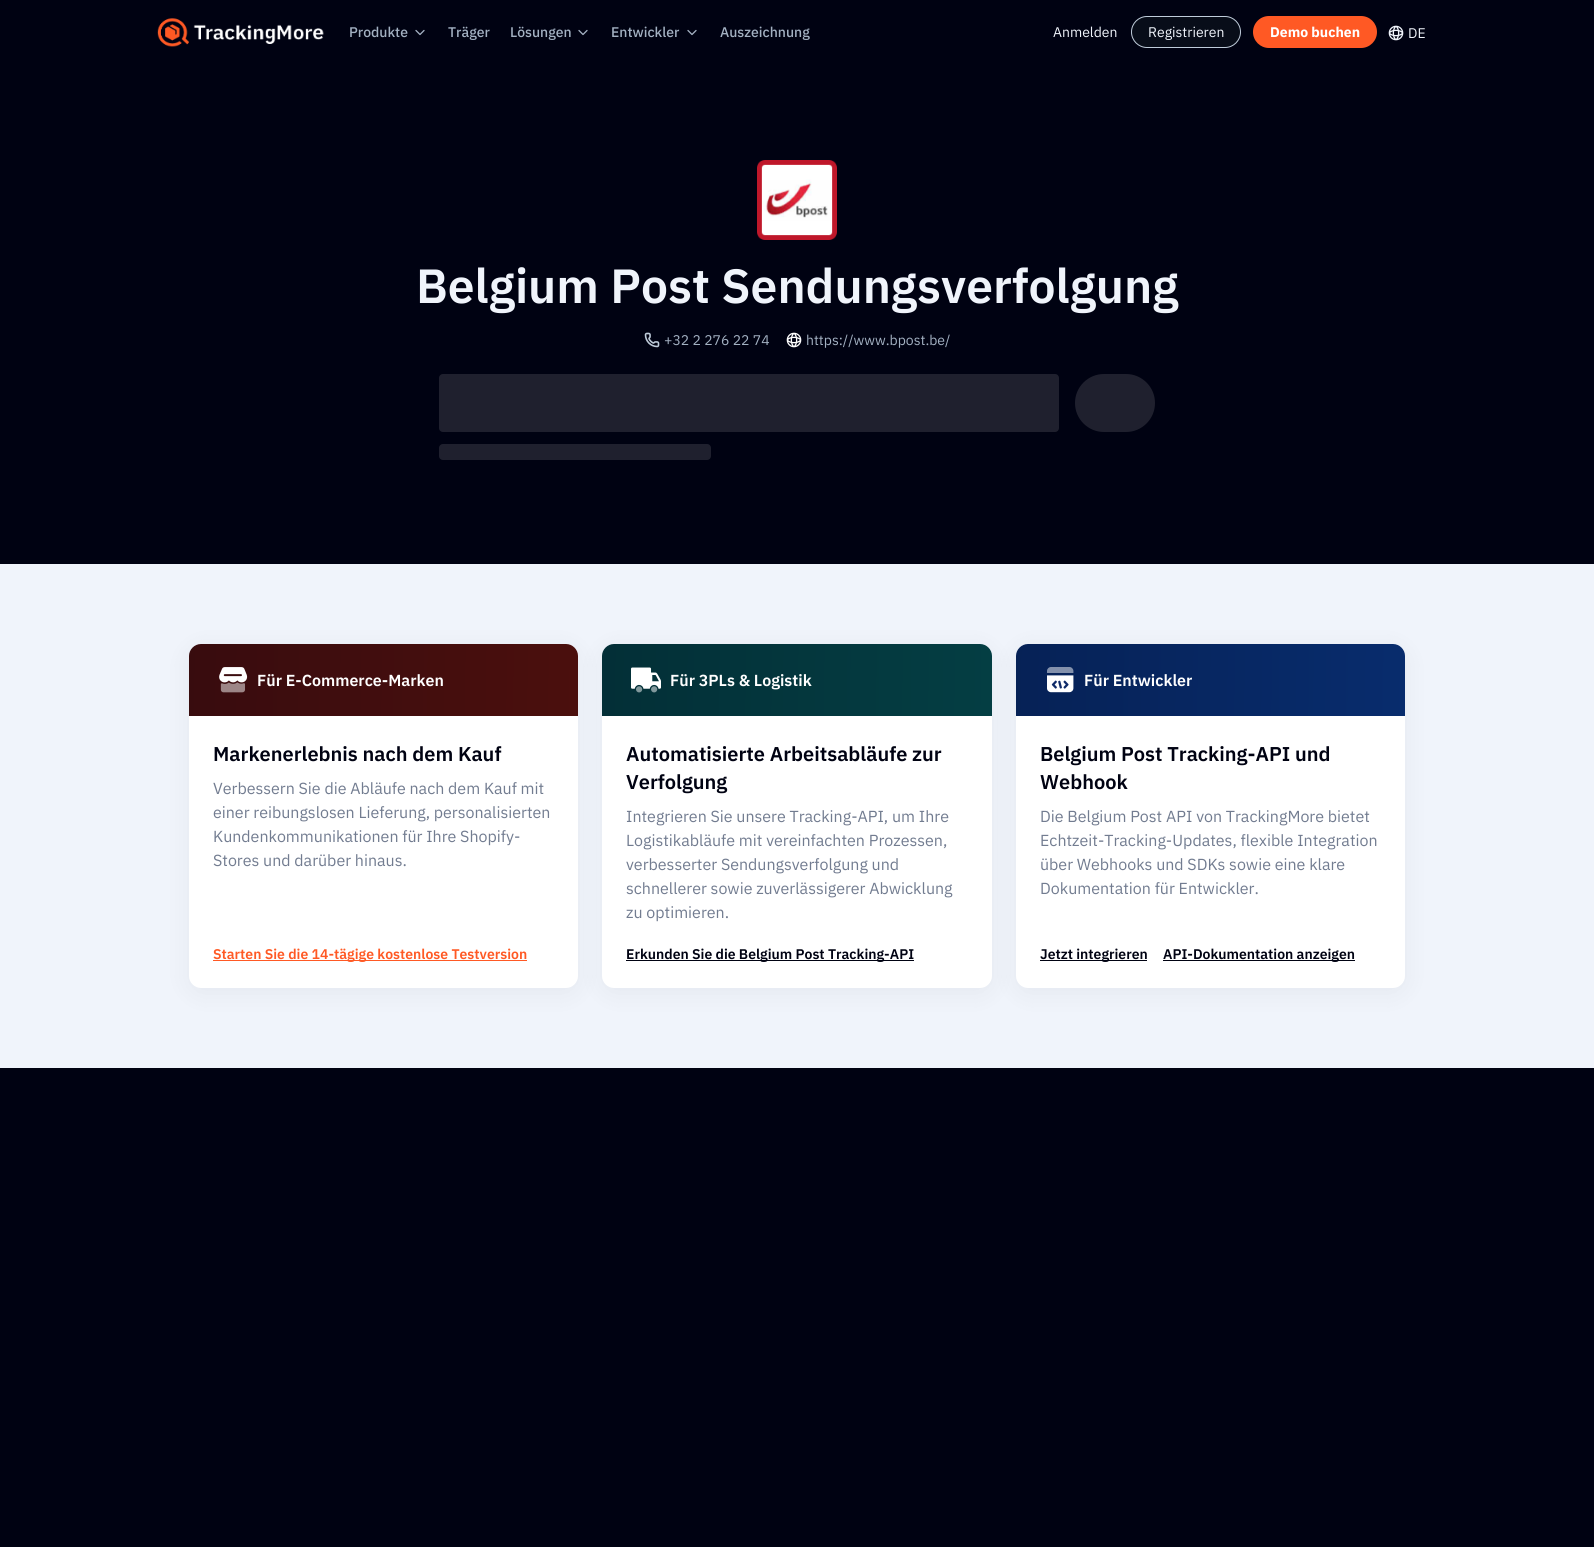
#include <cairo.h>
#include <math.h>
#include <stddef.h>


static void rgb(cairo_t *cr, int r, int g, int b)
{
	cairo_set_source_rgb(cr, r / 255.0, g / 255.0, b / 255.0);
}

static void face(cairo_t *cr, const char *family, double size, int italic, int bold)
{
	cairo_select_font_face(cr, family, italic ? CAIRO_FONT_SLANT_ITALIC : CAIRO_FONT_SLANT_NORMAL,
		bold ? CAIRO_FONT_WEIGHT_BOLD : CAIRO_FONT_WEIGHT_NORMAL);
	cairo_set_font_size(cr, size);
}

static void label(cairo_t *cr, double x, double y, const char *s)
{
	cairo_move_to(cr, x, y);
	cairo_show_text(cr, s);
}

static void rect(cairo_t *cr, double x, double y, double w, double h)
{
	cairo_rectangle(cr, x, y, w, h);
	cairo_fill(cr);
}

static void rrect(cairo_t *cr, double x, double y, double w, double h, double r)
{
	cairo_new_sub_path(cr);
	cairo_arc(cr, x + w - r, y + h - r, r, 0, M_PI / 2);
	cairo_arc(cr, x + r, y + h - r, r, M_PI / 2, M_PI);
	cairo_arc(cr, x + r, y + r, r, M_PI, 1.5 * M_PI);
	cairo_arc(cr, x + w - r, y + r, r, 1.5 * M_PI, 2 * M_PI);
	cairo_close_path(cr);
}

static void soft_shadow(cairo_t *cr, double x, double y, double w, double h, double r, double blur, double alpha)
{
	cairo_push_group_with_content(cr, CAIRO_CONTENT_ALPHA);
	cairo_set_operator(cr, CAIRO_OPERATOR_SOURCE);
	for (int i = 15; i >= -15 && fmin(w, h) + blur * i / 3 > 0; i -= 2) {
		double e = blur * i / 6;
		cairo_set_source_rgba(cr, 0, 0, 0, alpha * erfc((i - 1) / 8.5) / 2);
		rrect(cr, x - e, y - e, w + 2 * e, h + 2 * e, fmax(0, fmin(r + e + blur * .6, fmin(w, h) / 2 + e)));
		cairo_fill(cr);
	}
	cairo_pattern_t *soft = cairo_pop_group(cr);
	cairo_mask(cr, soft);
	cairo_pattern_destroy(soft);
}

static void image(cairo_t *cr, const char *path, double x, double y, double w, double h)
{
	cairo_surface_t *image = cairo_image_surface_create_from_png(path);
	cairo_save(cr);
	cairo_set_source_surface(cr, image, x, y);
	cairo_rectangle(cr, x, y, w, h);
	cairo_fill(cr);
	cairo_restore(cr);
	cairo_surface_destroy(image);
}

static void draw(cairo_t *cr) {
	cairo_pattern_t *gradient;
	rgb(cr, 0, 2, 18);
	cairo_paint(cr);
	image(cr, "image0.png", 157, 18, 167, 29);
	face(cr, "IBM Plex Sans Medium", 14, 0, 0);
	rgb(cr, 163, 177, 194);
	label(cr, 349, 37, "Produkte");
	cairo_new_path(cr);
	cairo_move_to(cr, 416, 30.5);
	cairo_line_to(cr, 420, 34.5);
	cairo_line_to(cr, 424, 30.5);
	cairo_set_line_width(cr, 1.3);
	cairo_set_line_cap(cr, CAIRO_LINE_CAP_ROUND);
	cairo_set_line_join(cr, CAIRO_LINE_JOIN_ROUND);
	cairo_stroke(cr);
	label(cr, 448, 37, "Träger");
	label(cr, 510, 37, "Lösungen");
	cairo_new_path(cr);
	cairo_move_to(cr, 579, 30.5);
	cairo_line_to(cr, 583, 34.5);
	cairo_line_to(cr, 587, 30.5);
	cairo_stroke(cr);
	label(cr, 611, 37, "Entwickler");
	cairo_new_path(cr);
	cairo_move_to(cr, 688, 30.5);
	cairo_line_to(cr, 692, 34.5);
	cairo_line_to(cr, 696, 30.5);
	cairo_stroke(cr);
	label(cr, 720, 37, "Auszeichnung");
	face(cr, "IBM Plex Sans", 14, 0, 0);
	rgb(cr, 240, 244, 251);
	label(cr, 1053, 37, "Anmelden");
	rgb(cr, 8, 13, 25);
	rrect(cr, 1131.5, 16.5, 109, 31, 15.5);
	cairo_fill_preserve(cr);
	rgb(cr, 191, 204, 218);
	cairo_set_line_width(cr, 1);
	cairo_set_line_cap(cr, CAIRO_LINE_CAP_BUTT);
	cairo_set_line_join(cr, CAIRO_LINE_JOIN_MITER);
	cairo_stroke(cr);
	rgb(cr, 240, 244, 251);
	label(cr, 1148, 37, "Registrieren");
	rgb(cr, 255, 89, 36);
	rrect(cr, 1253, 16, 124, 32, 16);
	cairo_fill(cr);
	face(cr, "IBM Plex Sans", 14, 0, 1);
	rgb(cr, 255, 255, 255);
	label(cr, 1270, 37, "Demo buchen");
	image(cr, "image1.png", 1388, 25, 16, 16);
	face(cr, "IBM Plex Sans", 14, 0, 0);
	rgb(cr, 240, 244, 251);
	label(cr, 1408, 38, "DE");
	image(cr, "image2.png", 757, 160, 80, 80);
	face(cr, "IBM Plex Sans SemiBold", 48, 0, 0);
	label(cr, 416, 303, "Belgium Post Sendungsverfolgung");
	image(cr, "image3.png", 644, 332, 16, 16);
	face(cr, "IBM Plex Sans", 14, 0, 0);
	rgb(cr, 163, 177, 194);
	label(cr, 664, 345, "+32 2 276 22 74");
	image(cr, "image4.png", 786, 332, 16, 16);
	label(cr, 806, 345, "https://www.bpost.be/");
	gradient = cairo_pattern_create_linear(439, 403, 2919, 403);
	cairo_pattern_add_color_stop_rgba(gradient, 0.25, 0.122, 0.125, 0.18, 1);
	cairo_pattern_add_color_stop_rgba(gradient, 0.37, 0.18, 0.188, 0.239, 1);
	cairo_pattern_add_color_stop_rgba(gradient, 0.63, 0.122, 0.125, 0.18, 1);
	cairo_set_source(cr, gradient);
	cairo_pattern_destroy(gradient);
	rrect(cr, 439, 374, 620, 58, 4);
	cairo_fill(cr);
	gradient = cairo_pattern_create_linear(1075, 403, 1395, 403);
	cairo_pattern_add_color_stop_rgba(gradient, 0.25, 0.122, 0.125, 0.18, 1);
	cairo_pattern_add_color_stop_rgba(gradient, 0.37, 0.18, 0.188, 0.239, 1);
	cairo_pattern_add_color_stop_rgba(gradient, 0.63, 0.122, 0.125, 0.18, 1);
	cairo_set_source(cr, gradient);
	cairo_pattern_destroy(gradient);
	rrect(cr, 1075, 374, 80, 58, 29);
	cairo_fill(cr);
	gradient = cairo_pattern_create_linear(439, 452, 1527, 452);
	cairo_pattern_add_color_stop_rgba(gradient, 0.25, 0.122, 0.125, 0.18, 1);
	cairo_pattern_add_color_stop_rgba(gradient, 0.37, 0.18, 0.188, 0.239, 1);
	cairo_pattern_add_color_stop_rgba(gradient, 0.63, 0.122, 0.125, 0.18, 1);
	cairo_set_source(cr, gradient);
	cairo_pattern_destroy(gradient);
	rrect(cr, 439, 444, 272, 16, 4);
	cairo_fill(cr);
	rgb(cr, 240, 244, 251);
	rect(cr, 0, 564, 1594, 504);
	rgb(cr, 0, 2, 18);
	soft_shadow(cr, 189, 649, 389, 344, 12, 12.5, 0.05);
	gradient = cairo_pattern_create_linear(-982, 656, 579, 683);
	cairo_pattern_add_color_stop_rgba(gradient, 0, 0, 0.008, 0.071, 1);
	cairo_pattern_add_color_stop_rgba(gradient, 1, 0.294, 0.059, 0.051, 1);
	cairo_set_source(cr, gradient);
	cairo_pattern_destroy(gradient);
	cairo_new_path(cr);
	cairo_move_to(cr, 201, 644);
	cairo_line_to(cr, 566, 644);
	cairo_curve_to(cr, 572.5, 644, 578, 649.5, 578, 656);
	cairo_line_to(cr, 578, 716);
	cairo_line_to(cr, 189, 716);
	cairo_line_to(cr, 189, 656);
	cairo_curve_to(cr, 189, 649.5, 194.5, 644, 201, 644);
	cairo_close_path(cr);
	cairo_fill(cr);
	image(cr, "image5.png", 219, 667, 29, 26);
	face(cr, "IBM Plex Sans SemiBold", 16, 0, 0);
	rgb(cr, 255, 255, 255);
	label(cr, 257, 686, "Für E-Commerce-Marken");
	cairo_new_path(cr);
	cairo_move_to(cr, 189, 716);
	cairo_line_to(cr, 578, 716);
	cairo_line_to(cr, 578, 976);
	cairo_curve_to(cr, 578, 982.5, 572.5, 988, 566, 988);
	cairo_line_to(cr, 201, 988);
	cairo_curve_to(cr, 194.5, 988, 189, 982.5, 189, 976);
	cairo_close_path(cr);
	cairo_fill(cr);
	face(cr, "IBM Plex Sans SemiBold", 20, 0, 0);
	rgb(cr, 0, 2, 18);
	label(cr, 213, 761, "Markenerlebnis nach dem Kauf");
	face(cr, "IBM Plex Sans", 16, 0, 0);
	rgb(cr, 114, 124, 144);
	label(cr, 213, 794, "Verbessern Sie die Abläufe nach dem Kauf mit");
	label(cr, 213, 818, "einer reibungslosen Lieferung, personalisierten");
	label(cr, 213, 842, "Kundenkommunikationen für Ihre Shopify-");
	label(cr, 213, 866, "Stores und darüber hinaus.");
	rgb(cr, 255, 89, 36);
	rect(cr, 213, 960, 314, 1);
	face(cr, "IBM Plex Sans SemiBold", 14, 0, 0);
	label(cr, 213, 959, "Starten Sie die 14-tägige kostenlose Testversion");
	rgb(cr, 0, 2, 18);
	soft_shadow(cr, 602, 649, 390, 344, 12, 12.5, 0.05);
	gradient = cairo_pattern_create_linear(-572, 656, 993, 683);
	cairo_pattern_add_color_stop_rgba(gradient, 0, 0, 0.008, 0.071, 1);
	cairo_pattern_add_color_stop_rgba(gradient, 1, 0.016, 0.243, 0.263, 1);
	cairo_set_source(cr, gradient);
	cairo_pattern_destroy(gradient);
	cairo_new_path(cr);
	cairo_move_to(cr, 614, 644);
	cairo_line_to(cr, 980, 644);
	cairo_curve_to(cr, 986.5, 644, 992, 649.5, 992, 656);
	cairo_line_to(cr, 992, 716);
	cairo_line_to(cr, 602, 716);
	cairo_line_to(cr, 602, 656);
	cairo_curve_to(cr, 602, 649.5, 607.5, 644, 614, 644);
	cairo_close_path(cr);
	cairo_fill(cr);
	image(cr, "image6.png", 631, 667, 30, 26);
	face(cr, "IBM Plex Sans SemiBold", 16, 0, 0);
	rgb(cr, 255, 255, 255);
	label(cr, 670, 686, "Für 3PLs & Logistik");
	cairo_new_path(cr);
	cairo_move_to(cr, 602, 716);
	cairo_line_to(cr, 992, 716);
	cairo_line_to(cr, 992, 976);
	cairo_curve_to(cr, 992, 982.5, 986.5, 988, 980, 988);
	cairo_line_to(cr, 614, 988);
	cairo_curve_to(cr, 607.5, 988, 602, 982.5, 602, 976);
	cairo_close_path(cr);
	cairo_fill(cr);
	face(cr, "IBM Plex Sans SemiBold", 20, 0, 0);
	rgb(cr, 0, 2, 18);
	label(cr, 626, 761, "Automatisierte Arbeitsabläufe zur");
	label(cr, 626, 789, "Verfolgung");
	face(cr, "IBM Plex Sans", 16, 0, 0);
	rgb(cr, 114, 124, 144);
	label(cr, 626, 822, "Integrieren Sie unsere Tracking-API, um Ihre");
	label(cr, 626, 846, "Logistikabläufe mit vereinfachten Prozessen,");
	label(cr, 626, 870, "verbesserter Sendungsverfolgung und");
	label(cr, 626, 894, "schnellerer sowie zuverlässigerer Abwicklung");
	label(cr, 626, 918, "zu optimieren.");
	rgb(cr, 0, 2, 18);
	rect(cr, 626, 960, 288, 1);
	face(cr, "IBM Plex Sans SemiBold", 14, 0, 0);
	label(cr, 626, 959, "Erkunden Sie die Belgium Post Tracking-API");
	rgb(cr, 0, 2, 18);
	soft_shadow(cr, 1016, 649, 389, 344, 12, 12.5, 0.05);
	gradient = cairo_pattern_create_linear(-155, 656, 1406, 683);
	cairo_pattern_add_color_stop_rgba(gradient, 0, 0, 0.008, 0.071, 1);
	cairo_pattern_add_color_stop_rgba(gradient, 1, 0.031, 0.173, 0.427, 1);
	cairo_set_source(cr, gradient);
	cairo_pattern_destroy(gradient);
	cairo_new_path(cr);
	cairo_move_to(cr, 1028, 644);
	cairo_line_to(cr, 1393, 644);
	cairo_curve_to(cr, 1399.5, 644, 1405, 649.5, 1405, 656);
	cairo_line_to(cr, 1405, 716);
	cairo_line_to(cr, 1016, 716);
	cairo_line_to(cr, 1016, 656);
	cairo_curve_to(cr, 1016, 649.5, 1021.5, 644, 1028, 644);
	cairo_close_path(cr);
	cairo_fill(cr);
	image(cr, "image7.png", 1047, 667, 27, 26);
	face(cr, "IBM Plex Sans SemiBold", 16, 0, 0);
	rgb(cr, 255, 255, 255);
	label(cr, 1084, 686, "Für Entwickler");
	cairo_new_path(cr);
	cairo_move_to(cr, 1016, 716);
	cairo_line_to(cr, 1405, 716);
	cairo_line_to(cr, 1405, 976);
	cairo_curve_to(cr, 1405, 982.5, 1399.5, 988, 1393, 988);
	cairo_line_to(cr, 1028, 988);
	cairo_curve_to(cr, 1021.5, 988, 1016, 982.5, 1016, 976);
	cairo_close_path(cr);
	cairo_fill(cr);
	face(cr, "IBM Plex Sans SemiBold", 20, 0, 0);
	rgb(cr, 0, 2, 18);
	label(cr, 1040, 761, "Belgium Post Tracking-API und");
	label(cr, 1040, 789, "Webhook");
	face(cr, "IBM Plex Sans", 16, 0, 0);
	rgb(cr, 114, 124, 144);
	label(cr, 1040, 822, "Die Belgium Post API von TrackingMore bietet");
	label(cr, 1040, 846, "Echtzeit-Tracking-Updates, flexible Integration");
	label(cr, 1040, 870, "über Webhooks und SDKs sowie eine klare");
	label(cr, 1040, 894, "Dokumentation für Entwickler.");
	rgb(cr, 0, 2, 18);
	rect(cr, 1040, 960, 107, 1);
	face(cr, "IBM Plex Sans SemiBold", 14, 0, 0);
	label(cr, 1040, 959, "Jetzt integrieren");
	rect(cr, 1163, 960, 192, 1);
	label(cr, 1163, 959, "API-Dokumentation anzeigen");
}

int main(void) {
	cairo_surface_t *surface = cairo_image_surface_create(CAIRO_FORMAT_RGB24, 1594, 1547);
	cairo_t *cr = cairo_create(surface);
	cairo_font_options_t *options = cairo_font_options_create();
	cairo_font_options_set_hint_metrics(options, CAIRO_HINT_METRICS_OFF);
	cairo_font_options_set_hint_style(options, CAIRO_HINT_STYLE_NONE);
	cairo_set_font_options(cr, options);
	cairo_set_miter_limit(cr, 4);
	draw(cr);
	cairo_surface_write_to_png(surface, "render.png");
	cairo_font_options_destroy(options);
	cairo_destroy(cr);
	cairo_surface_destroy(surface);
	return 0;
}
